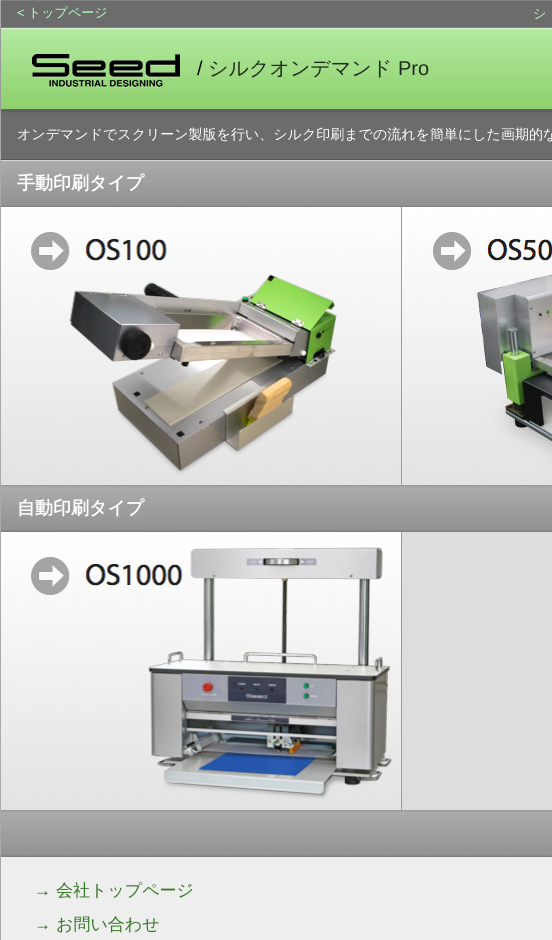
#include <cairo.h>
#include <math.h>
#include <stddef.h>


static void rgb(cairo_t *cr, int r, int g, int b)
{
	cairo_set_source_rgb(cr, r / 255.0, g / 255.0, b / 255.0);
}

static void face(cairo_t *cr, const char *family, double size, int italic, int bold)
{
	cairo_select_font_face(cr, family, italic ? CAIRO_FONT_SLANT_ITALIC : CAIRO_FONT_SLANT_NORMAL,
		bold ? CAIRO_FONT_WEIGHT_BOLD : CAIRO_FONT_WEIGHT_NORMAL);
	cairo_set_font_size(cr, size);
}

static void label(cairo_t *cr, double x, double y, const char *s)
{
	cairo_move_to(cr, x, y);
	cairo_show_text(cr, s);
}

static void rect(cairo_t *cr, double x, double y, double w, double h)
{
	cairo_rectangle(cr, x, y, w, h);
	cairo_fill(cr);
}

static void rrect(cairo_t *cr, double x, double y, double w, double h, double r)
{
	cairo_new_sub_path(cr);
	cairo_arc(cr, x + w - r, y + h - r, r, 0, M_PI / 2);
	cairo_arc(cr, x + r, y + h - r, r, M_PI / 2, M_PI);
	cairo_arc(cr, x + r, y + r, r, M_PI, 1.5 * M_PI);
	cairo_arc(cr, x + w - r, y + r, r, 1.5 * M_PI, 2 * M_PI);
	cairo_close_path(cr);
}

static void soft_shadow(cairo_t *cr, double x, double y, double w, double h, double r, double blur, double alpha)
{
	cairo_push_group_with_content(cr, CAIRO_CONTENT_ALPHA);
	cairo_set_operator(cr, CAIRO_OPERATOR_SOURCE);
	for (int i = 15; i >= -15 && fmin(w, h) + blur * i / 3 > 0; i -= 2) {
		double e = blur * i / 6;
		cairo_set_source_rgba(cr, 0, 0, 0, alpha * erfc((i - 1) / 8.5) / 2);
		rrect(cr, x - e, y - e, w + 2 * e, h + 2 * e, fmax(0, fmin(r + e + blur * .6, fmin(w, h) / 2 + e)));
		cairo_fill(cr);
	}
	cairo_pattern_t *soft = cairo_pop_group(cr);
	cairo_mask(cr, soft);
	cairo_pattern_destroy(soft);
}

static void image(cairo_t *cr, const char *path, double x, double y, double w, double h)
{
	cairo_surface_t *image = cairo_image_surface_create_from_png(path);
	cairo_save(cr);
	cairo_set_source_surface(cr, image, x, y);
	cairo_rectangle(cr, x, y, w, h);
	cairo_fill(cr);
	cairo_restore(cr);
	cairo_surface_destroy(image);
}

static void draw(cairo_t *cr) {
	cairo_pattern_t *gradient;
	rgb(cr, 170, 170, 170);
	cairo_paint(cr);
	rgb(cr, 108, 108, 108);
	rect(cr, 1, 1, 551, 26);
	face(cr, "Liberation Sans", 13, 0, 0);
	rgb(cr, 185, 255, 194);
	label(cr, 17, 17, "<");
	face(cr, "WenQuanYi Zen Hei Medium", 13, 0, 0);
	label(cr, 28, 17, "トップページ");
	rgb(cr, 128, 128, 128);
	rect(cr, 1, 0, 551, 1);
	rgb(cr, 185, 255, 194);
	label(cr, 533, 18, "シ");
	rgb(cr, 108, 108, 108);
	rect(cr, 1, 110, 551, 49);
	rgb(cr, 128, 128, 128);
	rect(cr, 1, 109, 551, 1);
	rgb(cr, 0, 0, 0);
	soft_shadow(cr, 1, 29, 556, 82, 0, 1.5, 0.26);
	gradient = cairo_pattern_create_linear(401, 28, 401, 109);
	cairo_pattern_add_color_stop_rgba(gradient, 0, 0.702, 0.918, 0.624, 1);
	cairo_pattern_add_color_stop_rgba(gradient, 1, 0.557, 0.816, 0.427, 1);
	cairo_set_source(cr, gradient);
	cairo_pattern_destroy(gradient);
	rect(cr, 1, 29, 551, 80);
	rgb(cr, 217, 245, 207);
	rect(cr, 1, 28, 551, 1);
	rgb(cr, 128, 128, 128);
	rect(cr, 1, 27, 551, 1);
	image(cr, "image0.png", 32, 54, 148, 34);
	face(cr, "Liberation Sans", 20, 0, 0);
	rgb(cr, 0, 0, 0);
	label(cr, 197, 75, "/");
	face(cr, "WenQuanYi Zen Hei Medium", 20, 0, 0);
	rgb(cr, 32, 44, 27);
	label(cr, 208, 75, "シルクオンデマンド");
	face(cr, "Liberation Sans", 20, 0, 0);
	label(cr, 398, 75, "Pro");
	rgb(cr, 85, 85, 85);
	rect(cr, 1, 159, 551, 1);
	face(cr, "WenQuanYi Zen Hei Medium", 14, 0, 0);
	rgb(cr, 255, 255, 255);
	label(cr, 17, 139, "オンデマンドでスクリーン製版を行い、シルク印刷までの流れを簡単にした画期的な");
	image(cr, "image1.png", 1, 160, 551, 46);
	face(cr, "WenQuanYi Zen Hei", 18, 0, 1);
	label(cr, 17, 189, "手動印刷タイプ");
	rgb(cr, 128, 128, 128);
	rect(cr, 1, 206, 551, 1);
	rgb(cr, 153, 153, 153);
	rect(cr, 401, 207, 1, 279);
	rect(cr, 1, 485, 551, 1);
	image(cr, "image2.png", 1, 207, 400, 278);
	image(cr, "image3.png", 402, 207, 150, 278);
	image(cr, "image4.png", 1, 486, 551, 45);
	rgb(cr, 255, 255, 255);
	label(cr, 17, 514, "自動印刷タイプ");
	rgb(cr, 221, 221, 221);
	rect(cr, 402, 532, 150, 278);
	rgb(cr, 128, 128, 128);
	rect(cr, 1, 531, 551, 1);
	rgb(cr, 153, 153, 153);
	rect(cr, 401, 532, 1, 279);
	image(cr, "image5.png", 1, 532, 400, 278);
	image(cr, "image6.png", 1, 810, 551, 46);
	rgb(cr, 238, 238, 238);
	rect(cr, 1, 857, 551, 83);
	rgb(cr, 128, 128, 128);
	rect(cr, 1, 856, 551, 1);
	face(cr, "Liberation Sans", 17, 0, 0);
	rgb(cr, 51, 119, 34);
	label(cr, 34, 896, "→");
	face(cr, "WenQuanYi Zen Hei Medium", 17, 0, 0);
	label(cr, 56, 896, "会社トップページ");
	face(cr, "Liberation Sans", 17, 0, 0);
	label(cr, 34, 930, "→");
	face(cr, "WenQuanYi Zen Hei Medium", 17, 0, 0);
	label(cr, 56, 930, "お問い合わせ");
}

int main(void) {
	cairo_surface_t *surface = cairo_image_surface_create(CAIRO_FORMAT_RGB24, 552, 940);
	cairo_t *cr = cairo_create(surface);
	cairo_font_options_t *options = cairo_font_options_create();
	cairo_font_options_set_hint_metrics(options, CAIRO_HINT_METRICS_OFF);
	cairo_font_options_set_hint_style(options, CAIRO_HINT_STYLE_NONE);
	cairo_set_font_options(cr, options);
	cairo_set_miter_limit(cr, 4);
	draw(cr);
	cairo_surface_write_to_png(surface, "render.png");
	cairo_font_options_destroy(options);
	cairo_destroy(cr);
	cairo_surface_destroy(surface);
	return 0;
}
